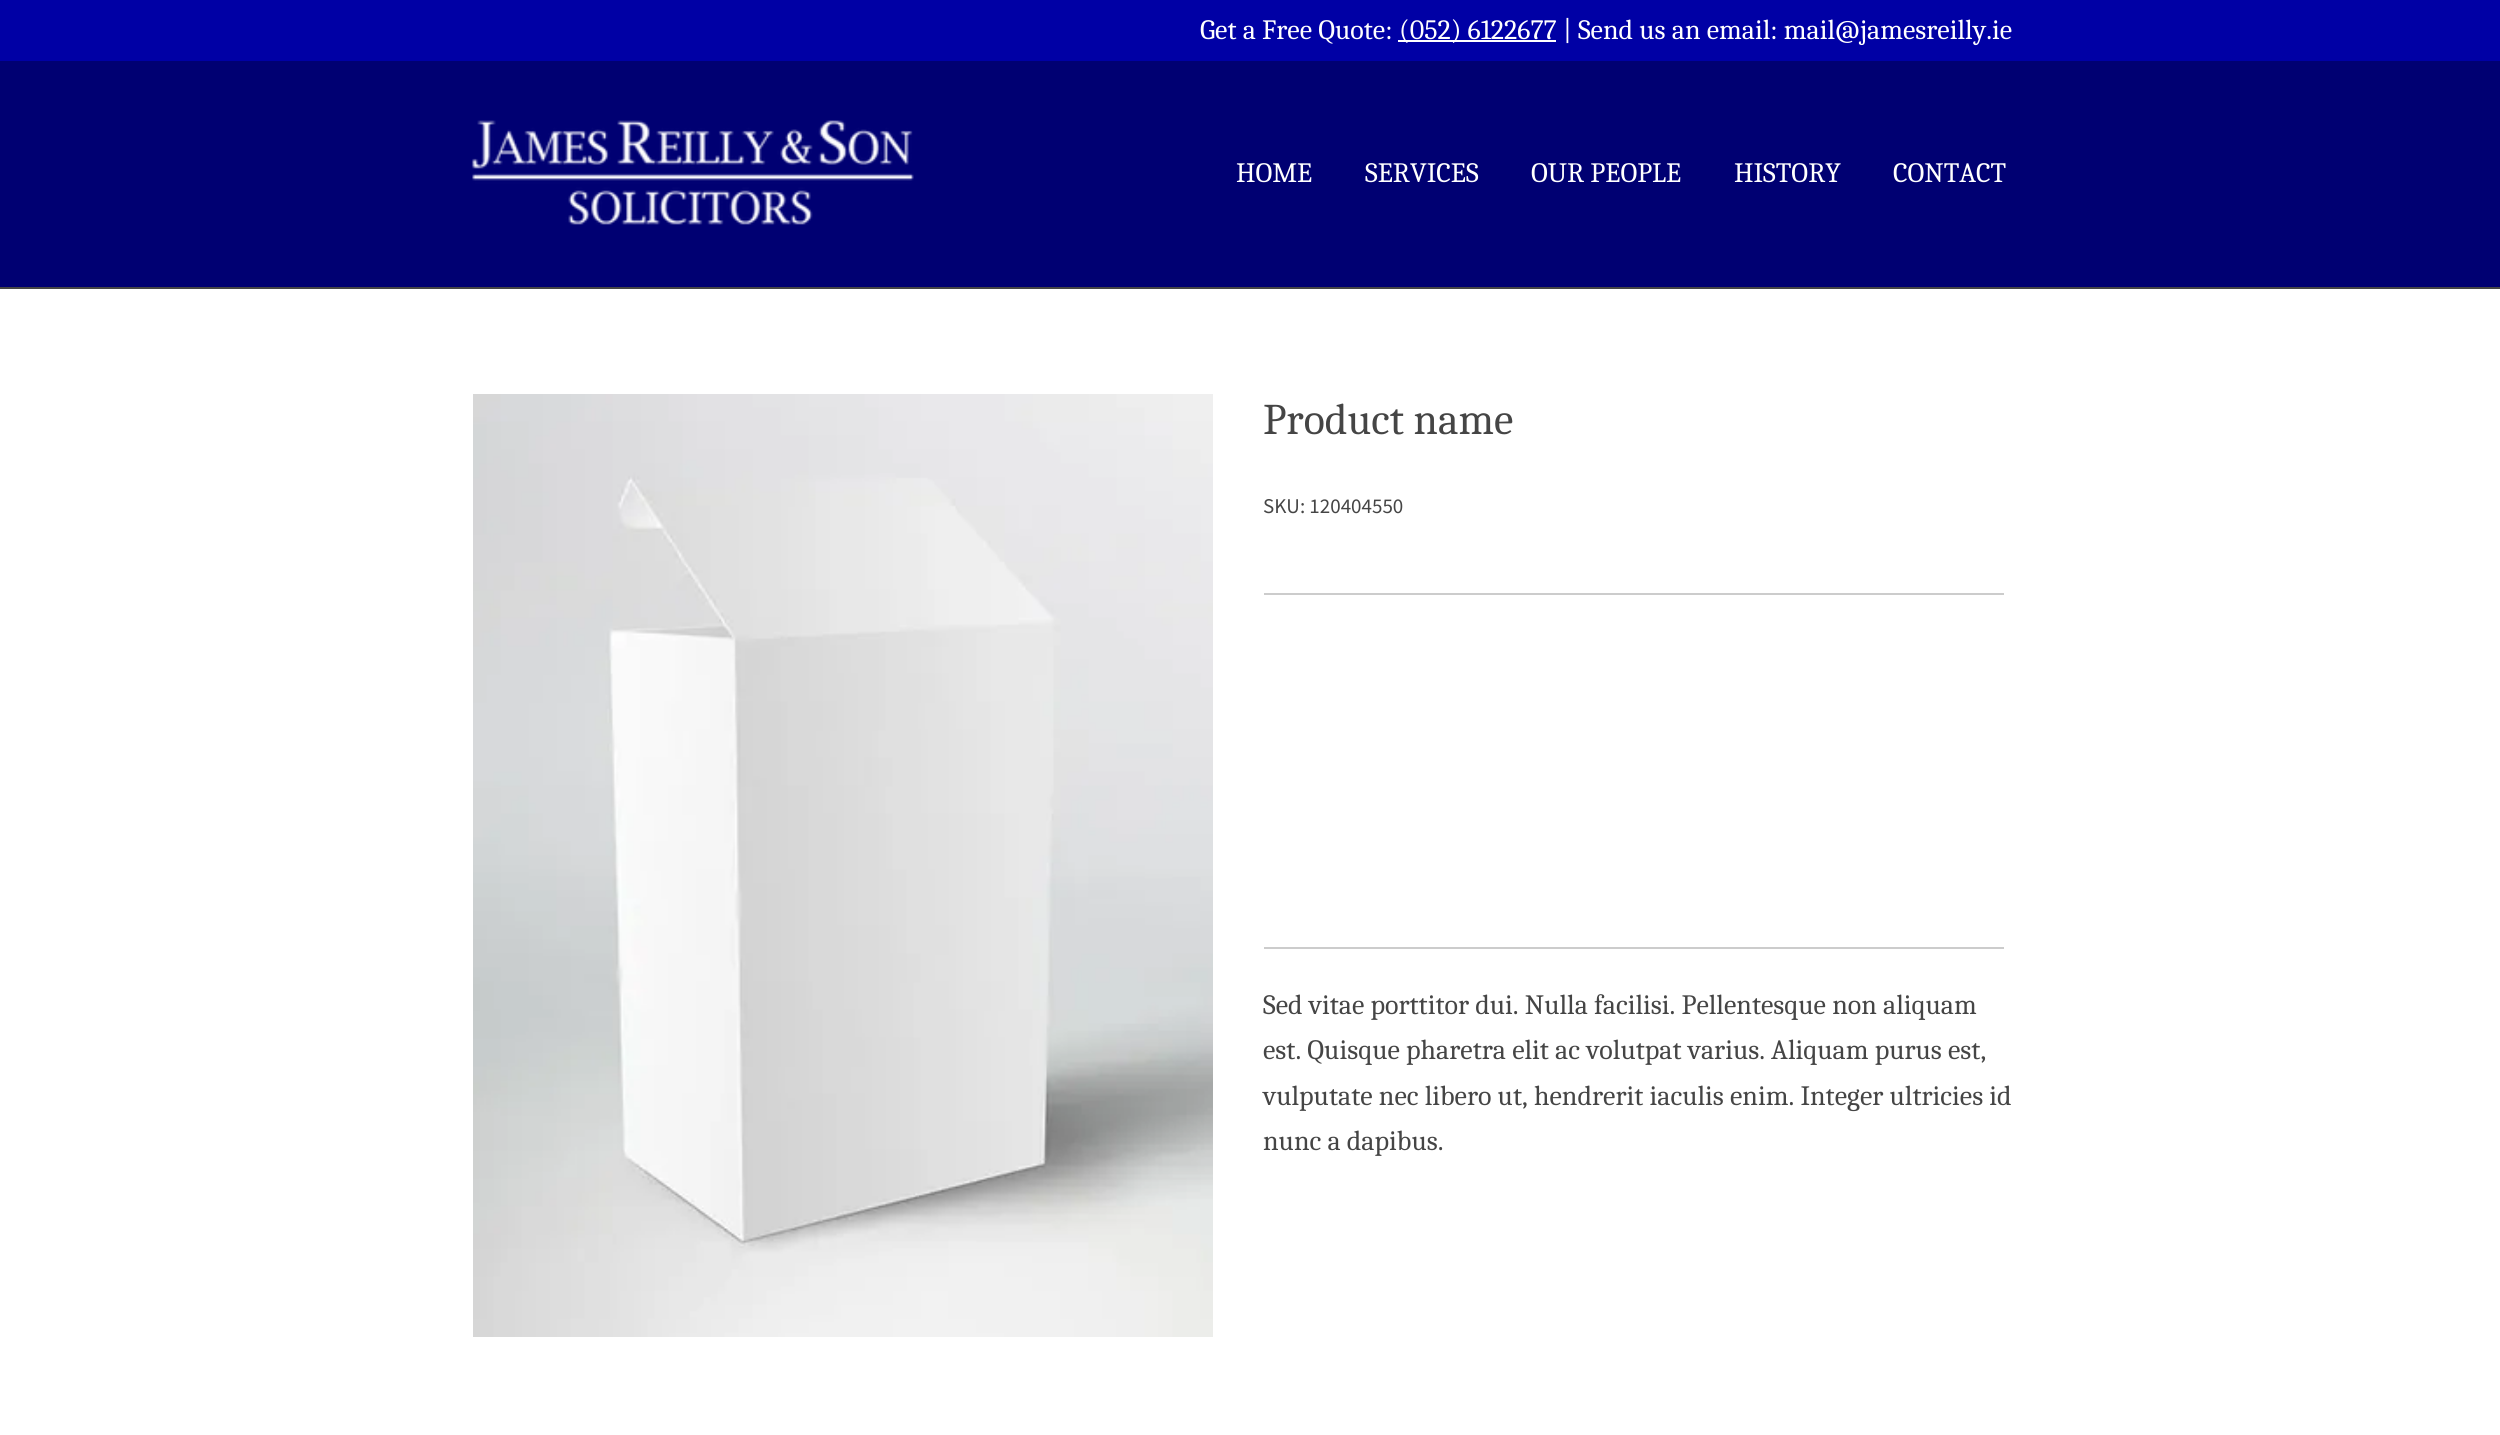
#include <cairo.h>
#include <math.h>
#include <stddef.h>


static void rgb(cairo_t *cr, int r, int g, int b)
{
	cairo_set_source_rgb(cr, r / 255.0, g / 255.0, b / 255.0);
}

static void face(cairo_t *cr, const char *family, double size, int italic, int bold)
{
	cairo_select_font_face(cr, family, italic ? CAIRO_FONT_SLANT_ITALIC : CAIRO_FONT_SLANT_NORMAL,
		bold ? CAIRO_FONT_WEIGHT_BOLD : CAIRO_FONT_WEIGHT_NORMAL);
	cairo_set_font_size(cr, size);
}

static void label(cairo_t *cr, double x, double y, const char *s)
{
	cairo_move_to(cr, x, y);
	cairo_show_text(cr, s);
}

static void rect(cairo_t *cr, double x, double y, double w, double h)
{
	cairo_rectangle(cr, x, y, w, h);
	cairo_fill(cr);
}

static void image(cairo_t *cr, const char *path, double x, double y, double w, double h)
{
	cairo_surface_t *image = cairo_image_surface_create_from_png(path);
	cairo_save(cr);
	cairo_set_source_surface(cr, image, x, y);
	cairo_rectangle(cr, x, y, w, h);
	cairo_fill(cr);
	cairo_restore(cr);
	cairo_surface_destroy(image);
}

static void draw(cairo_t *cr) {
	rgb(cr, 69, 69, 69);
	cairo_paint(cr);
	rgb(cr, 0, 0, 165);
	rect(cr, 0, 0, 2500, 61);
	face(cr, "Caladea", 28, 0, 0);
	rgb(cr, 255, 255, 255);
	label(cr, 1200, 39, "Get a Free Quote:");
	rect(cr, 1398, 40, 158, 2);
	label(cr, 1399, 39, "(052) 6122677 | Send us an email: mail@jamesreilly.ie");
	rgb(cr, 0, 0, 114);
	rect(cr, 0, 61, 2500, 226);
	image(cr, "image0.png", 471, 120, 443, 105);
	rgb(cr, 255, 255, 255);
	label(cr, 1236, 182, "HOME");
	label(cr, 1365, 182, "SERVICES");
	label(cr, 1531, 182, "OUR PEOPLE");
	label(cr, 1734, 182, "HISTORY");
	label(cr, 1893, 182, "CONTACT");
	rect(cr, 0, 289, 2500, 1146);
	image(cr, "image1.png", 473, 394, 740, 943);
	face(cr, "Caladea", 43.75, 0, 0);
	rgb(cr, 69, 69, 69);
	label(cr, 1263, 434, "Product name");
	face(cr, "Source Sans Pro", 21, 0, 0);
	label(cr, 1263, 513, "SKU: 120404550");
	rgb(cr, 204, 204, 204);
	rect(cr, 1264, 593, 740, 2);
	rect(cr, 1264, 947, 740, 2);
	face(cr, "Caladea", 28, 0, 0);
	rgb(cr, 69, 69, 69);
	label(cr, 1263, 1014, "Sed vitae porttitor dui. Nulla facilisi. Pellentesque non aliquam");
	label(cr, 1263, 1059, "est. Quisque pharetra elit ac volutpat varius. Aliquam purus est,");
	label(cr, 1263, 1105, "vulputate nec libero ut, hendrerit iaculis enim. Integer ultricies id");
	label(cr, 1263, 1150, "nunc a dapibus.");
}

int main(void) {
	cairo_surface_t *surface = cairo_image_surface_create(CAIRO_FORMAT_RGB24, 2500, 1435);
	cairo_t *cr = cairo_create(surface);
	cairo_font_options_t *options = cairo_font_options_create();
	cairo_font_options_set_hint_metrics(options, CAIRO_HINT_METRICS_OFF);
	cairo_font_options_set_hint_style(options, CAIRO_HINT_STYLE_NONE);
	cairo_set_font_options(cr, options);
	cairo_set_miter_limit(cr, 4);
	draw(cr);
	cairo_surface_write_to_png(surface, "render.png");
	cairo_font_options_destroy(options);
	cairo_destroy(cr);
	cairo_surface_destroy(surface);
	return 0;
}
